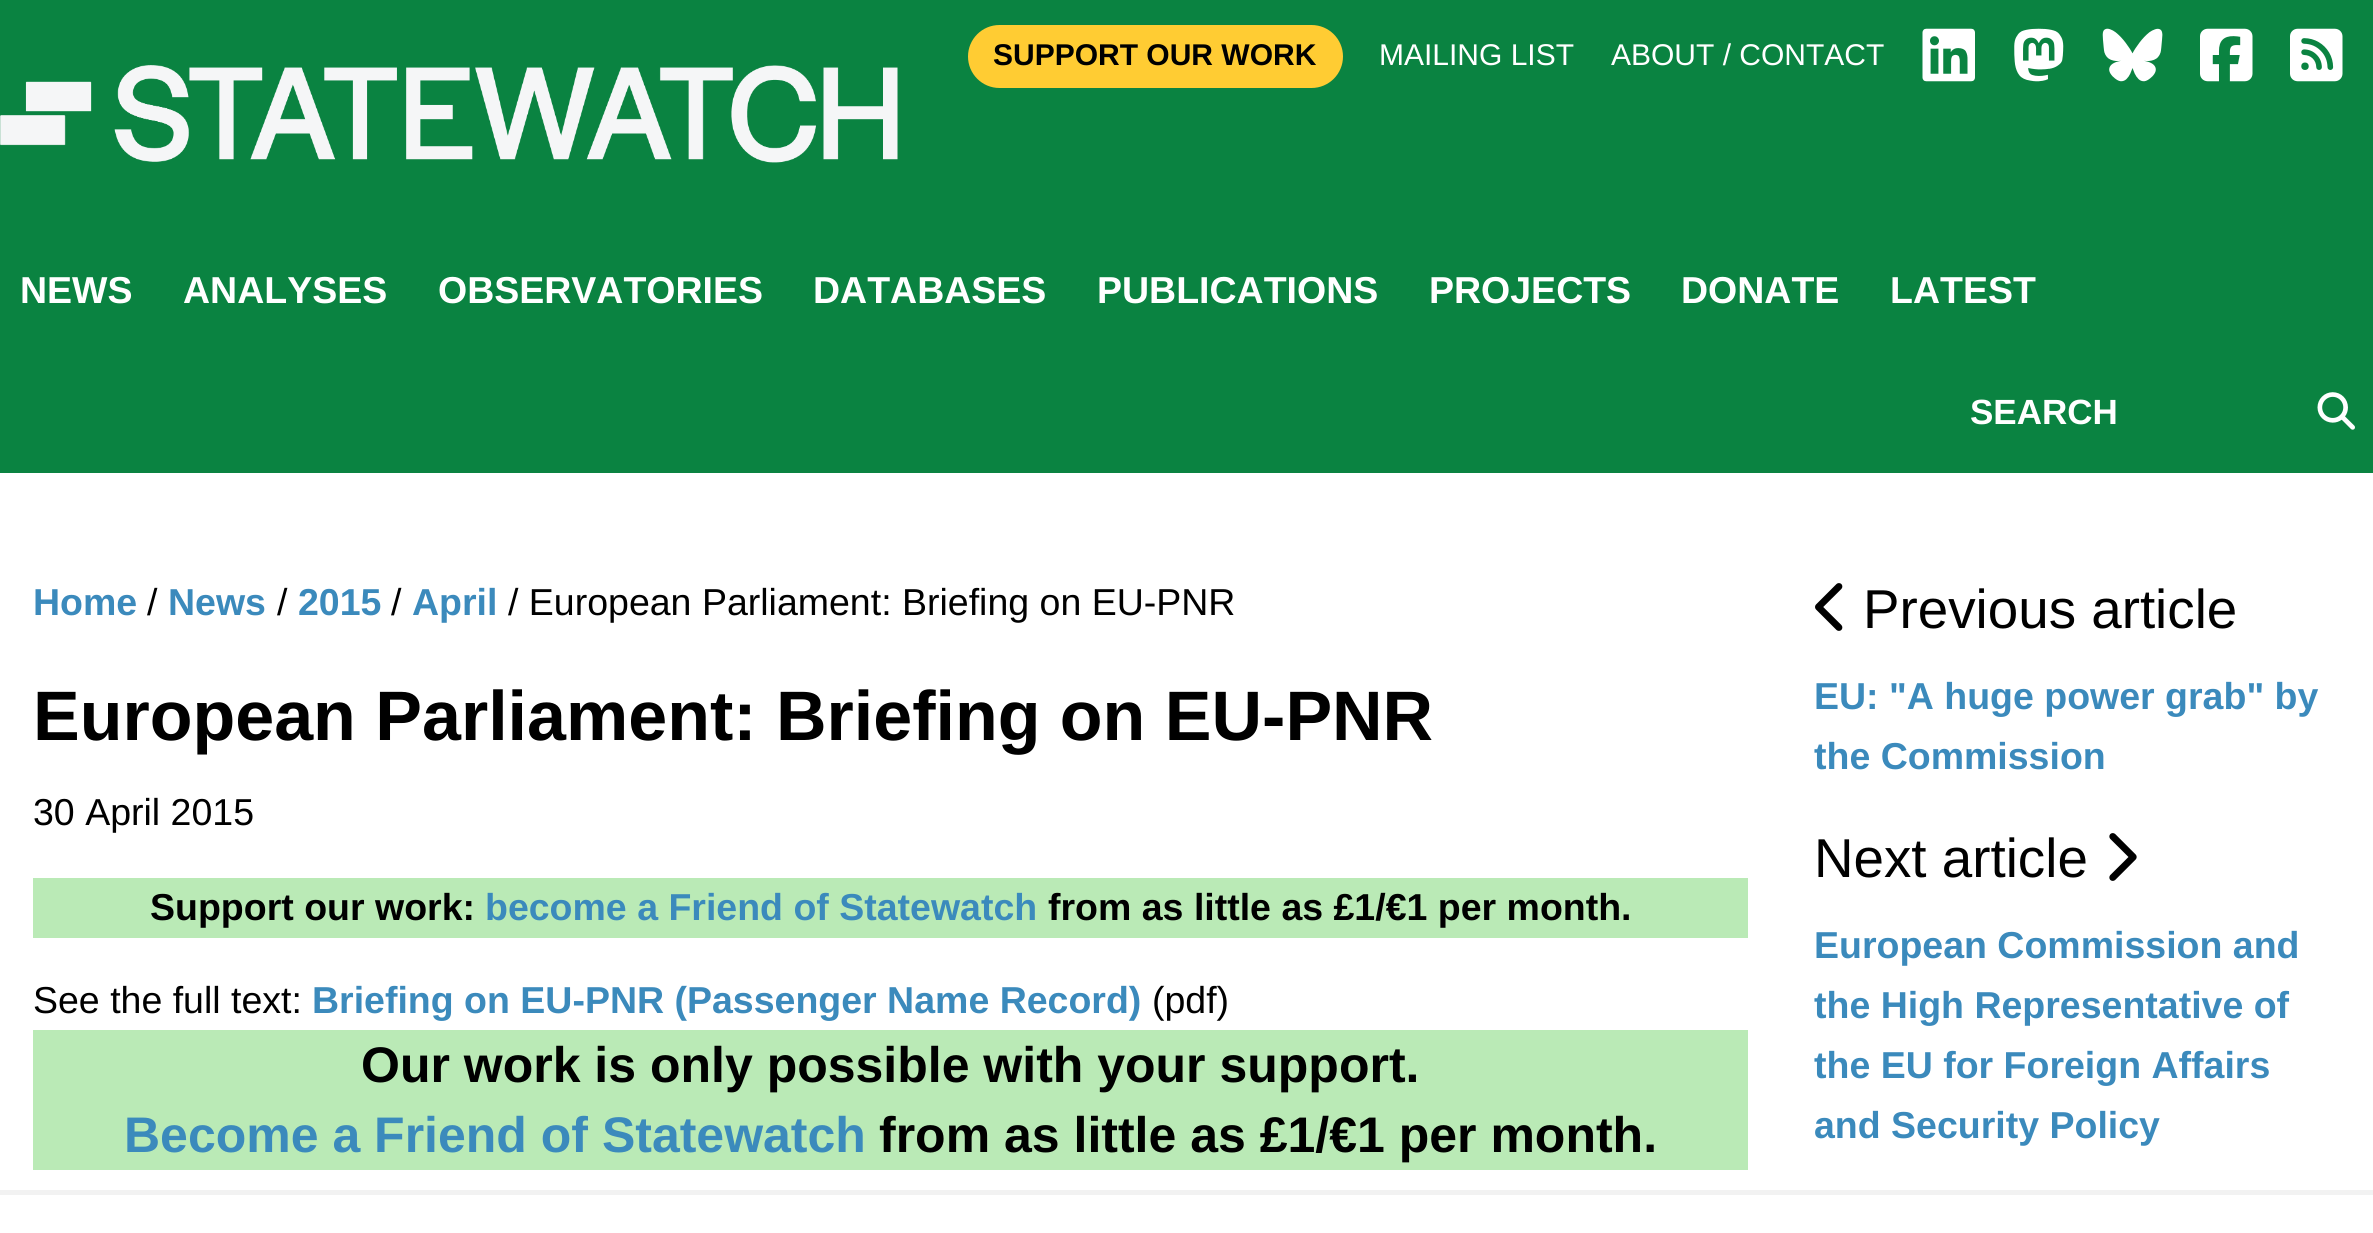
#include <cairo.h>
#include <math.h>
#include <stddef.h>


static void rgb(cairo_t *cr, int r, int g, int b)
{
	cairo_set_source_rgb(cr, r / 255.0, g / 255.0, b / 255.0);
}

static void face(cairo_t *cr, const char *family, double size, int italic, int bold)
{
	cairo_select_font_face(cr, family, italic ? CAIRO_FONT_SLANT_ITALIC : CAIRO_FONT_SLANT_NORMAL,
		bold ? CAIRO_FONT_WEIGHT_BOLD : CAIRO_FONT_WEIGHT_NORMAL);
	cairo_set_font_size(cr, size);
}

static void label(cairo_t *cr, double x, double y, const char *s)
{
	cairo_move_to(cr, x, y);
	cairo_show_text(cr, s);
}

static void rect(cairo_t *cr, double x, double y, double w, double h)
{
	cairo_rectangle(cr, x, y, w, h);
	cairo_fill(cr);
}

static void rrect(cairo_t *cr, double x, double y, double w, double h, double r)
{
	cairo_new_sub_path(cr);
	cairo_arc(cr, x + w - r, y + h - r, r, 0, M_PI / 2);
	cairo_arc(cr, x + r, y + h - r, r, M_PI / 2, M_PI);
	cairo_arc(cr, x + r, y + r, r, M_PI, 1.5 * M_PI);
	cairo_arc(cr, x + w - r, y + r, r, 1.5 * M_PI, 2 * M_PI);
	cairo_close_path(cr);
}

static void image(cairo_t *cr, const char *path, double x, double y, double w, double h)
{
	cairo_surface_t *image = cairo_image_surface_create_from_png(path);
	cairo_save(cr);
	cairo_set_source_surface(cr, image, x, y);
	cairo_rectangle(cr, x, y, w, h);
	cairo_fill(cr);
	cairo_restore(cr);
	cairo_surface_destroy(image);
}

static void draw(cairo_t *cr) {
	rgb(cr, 255, 255, 255);
	cairo_paint(cr);
	rgb(cr, 10, 131, 65);
	rect(cr, 0, 0, 2373, 473);
	rgb(cr, 255, 204, 51);
	rrect(cr, 968, 25, 375, 63, 31.5);
	cairo_fill(cr);
	face(cr, "Liberation Sans", 30, 0, 1);
	rgb(cr, 0, 0, 0);
	label(cr, 993, 65, "SUPPORT OUR WORK");
	face(cr, "Liberation Sans", 30, 0, 0);
	rgb(cr, 255, 255, 255);
	label(cr, 1379, 65, "MAILING LIST");
	label(cr, 1611, 65, "ABOUT / CONTACT");
	image(cr, "image0.png", 1922, 28, 53, 54);
	image(cr, "image1.png", 2014, 28, 50, 54);
	image(cr, "image2.png", 2102, 28, 61, 54);
	image(cr, "image3.png", 2200, 28, 53, 54);
	image(cr, "image4.png", 2290, 28, 53, 54);
	image(cr, "image5.png", 0, 65, 898, 98);
	face(cr, "Liberation Sans", 37.5, 0, 1);
	label(cr, 20, 303, "NEWS");
	label(cr, 183, 303, "ANALYSES");
	label(cr, 438, 303, "OBSERVATORIES");
	label(cr, 813, 303, "DATABASES");
	label(cr, 1097, 303, "PUBLICATIONS");
	label(cr, 1429, 303, "PROJECTS");
	label(cr, 1681, 303, "DONATE");
	label(cr, 1890, 303, "LATEST");
	face(cr, "Liberation Sans", 35, 0, 1);
	label(cr, 1970, 424, "SEARCH");
	image(cr, "image6.png", 2317, 392, 38, 38);
	rgb(cr, 242, 242, 242);
	rect(cr, 0, 1190, 2373, 5);
	face(cr, "Liberation Sans", 37.5, 0, 1);
	rgb(cr, 59, 138, 188);
	label(cr, 33, 615, "Home");
	face(cr, "Liberation Sans", 37.5, 0, 0);
	rgb(cr, 0, 0, 0);
	label(cr, 147, 615, "/");
	face(cr, "Liberation Sans", 37.5, 0, 1);
	rgb(cr, 59, 138, 188);
	label(cr, 168, 615, "News");
	face(cr, "Liberation Sans", 37.5, 0, 0);
	rgb(cr, 0, 0, 0);
	label(cr, 277, 615, "/");
	face(cr, "Liberation Sans", 37.5, 0, 1);
	rgb(cr, 59, 138, 188);
	label(cr, 298, 615, "2015");
	face(cr, "Liberation Sans", 37.5, 0, 0);
	rgb(cr, 0, 0, 0);
	label(cr, 391, 615, "/");
	face(cr, "Liberation Sans", 37.5, 0, 1);
	rgb(cr, 59, 138, 188);
	label(cr, 412, 615, "April");
	face(cr, "Liberation Sans", 37.5, 0, 0);
	rgb(cr, 0, 0, 0);
	label(cr, 508, 615, "/ European Parliament: Briefing on EU-PNR");
	face(cr, "Liberation Sans", 70, 0, 1);
	label(cr, 33, 740, "European Parliament: Briefing on EU-PNR");
	face(cr, "Liberation Sans", 37.5, 0, 0);
	label(cr, 33, 825, "30 April 2015");
	rgb(cr, 186, 234, 182);
	rect(cr, 33, 878, 1715, 60);
	face(cr, "Liberation Sans", 37.5, 0, 1);
	rgb(cr, 0, 0, 0);
	label(cr, 150, 920, "Support our work:");
	rgb(cr, 59, 138, 188);
	label(cr, 485, 920, "become a Friend of Statewatch");
	rgb(cr, 0, 0, 0);
	label(cr, 1048, 920, "from as little as £1/€1 per month.");
	face(cr, "Liberation Sans", 37.5, 0, 0);
	label(cr, 33, 1013, "See the full text:");
	face(cr, "Liberation Sans", 37.5, 0, 1);
	rgb(cr, 59, 138, 188);
	label(cr, 312, 1013, "Briefing on EU-PNR (Passenger Name Record)");
	face(cr, "Liberation Sans", 37.5, 0, 0);
	rgb(cr, 0, 0, 0);
	label(cr, 1152, 1013, "(pdf)");
	rgb(cr, 186, 234, 182);
	rect(cr, 33, 1030, 1715, 140);
	face(cr, "Liberation Sans", 50, 0, 1);
	rgb(cr, 0, 0, 0);
	label(cr, 361, 1082, "Our work is only possible with your support.");
	rgb(cr, 59, 138, 188);
	label(cr, 124, 1152, "Become a Friend of Statewatch");
	rgb(cr, 0, 0, 0);
	label(cr, 879, 1152, "from as little as £1/€1 per month.");
	image(cr, "image7.png", 1815, 583, 28, 48);
	face(cr, "Liberation Sans", 54.75, 0, 0);
	label(cr, 1863, 628, "Previous article");
	face(cr, "Liberation Sans", 37.5, 0, 1);
	rgb(cr, 59, 138, 188);
	label(cr, 1814, 709, "EU: \"A huge power grab\" by");
	label(cr, 1814, 769, "the Commission");
	face(cr, "Liberation Sans", 54.75, 0, 0);
	rgb(cr, 0, 0, 0);
	label(cr, 1814, 877, "Next article");
	image(cr, "image8.png", 2109, 833, 28, 48);
	face(cr, "Liberation Sans", 37.5, 0, 1);
	rgb(cr, 59, 138, 188);
	label(cr, 1814, 958, "European Commission and");
	label(cr, 1814, 1018, "the High Representative of");
	label(cr, 1814, 1078, "the EU for Foreign Affairs");
	label(cr, 1814, 1138, "and Security Policy");
}

int main(void) {
	cairo_surface_t *surface = cairo_image_surface_create(CAIRO_FORMAT_RGB24, 2373, 1233);
	cairo_t *cr = cairo_create(surface);
	cairo_font_options_t *options = cairo_font_options_create();
	cairo_font_options_set_hint_metrics(options, CAIRO_HINT_METRICS_OFF);
	cairo_font_options_set_hint_style(options, CAIRO_HINT_STYLE_NONE);
	cairo_set_font_options(cr, options);
	cairo_set_miter_limit(cr, 4);
	draw(cr);
	cairo_surface_write_to_png(surface, "render.png");
	cairo_font_options_destroy(options);
	cairo_destroy(cr);
	cairo_surface_destroy(surface);
	return 0;
}
